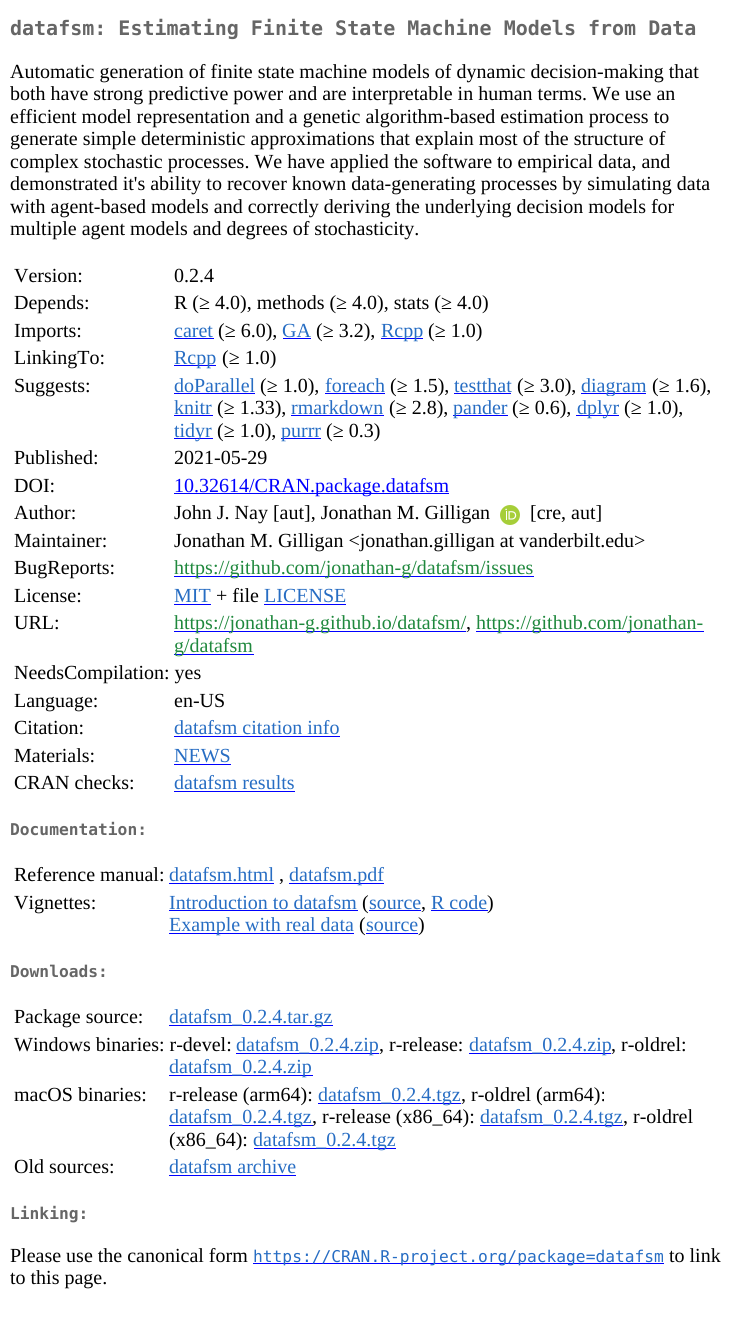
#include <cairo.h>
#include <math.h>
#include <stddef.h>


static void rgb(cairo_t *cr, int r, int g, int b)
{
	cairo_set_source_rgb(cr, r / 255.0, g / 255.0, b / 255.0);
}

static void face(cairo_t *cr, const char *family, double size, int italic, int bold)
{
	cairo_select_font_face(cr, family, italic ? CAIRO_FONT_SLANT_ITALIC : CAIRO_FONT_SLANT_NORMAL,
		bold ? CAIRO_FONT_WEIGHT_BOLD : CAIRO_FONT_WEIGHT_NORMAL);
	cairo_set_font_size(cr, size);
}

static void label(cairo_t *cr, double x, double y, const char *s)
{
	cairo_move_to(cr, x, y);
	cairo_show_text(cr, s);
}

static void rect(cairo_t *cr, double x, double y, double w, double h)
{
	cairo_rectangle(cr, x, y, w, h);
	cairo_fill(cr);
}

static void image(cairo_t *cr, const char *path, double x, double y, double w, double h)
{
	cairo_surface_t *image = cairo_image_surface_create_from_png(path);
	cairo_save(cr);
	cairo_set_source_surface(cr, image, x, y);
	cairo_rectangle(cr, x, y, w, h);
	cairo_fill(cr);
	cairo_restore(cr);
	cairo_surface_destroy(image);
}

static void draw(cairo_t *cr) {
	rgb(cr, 255, 255, 255);
	cairo_paint(cr);
	face(cr, "DejaVu Sans Mono", 20, 0, 1);
	rgb(cr, 102, 102, 102);
	label(cr, 10, 35, "datafsm: Estimating Finite State Machine Models from Data");
	face(cr, "Liberation Serif", 20, 0, 0);
	rgb(cr, 0, 0, 0);
	label(cr, 10, 78, "Automatic generation of finite state machine models of dynamic decision-making that");
	label(cr, 10, 100, "both have strong predictive power and are interpretable in human terms. We use an");
	label(cr, 10, 123, "efficient model representation and a genetic algorithm-based estimation process to");
	label(cr, 10, 145, "generate simple deterministic approximations that explain most of the structure of");
	label(cr, 10, 168, "complex stochastic processes. We have applied the software to empirical data, and");
	label(cr, 10, 190, "demonstrated it's ability to recover known data-generating processes by simulating data");
	label(cr, 10, 213, "with agent-based models and correctly deriving the underlying decision models for");
	label(cr, 10, 235, "multiple agent models and degrees of stochasticity.");
	label(cr, 14, 282, "Version:");
	label(cr, 174, 282, "0.2.4");
	label(cr, 14, 309, "Depends:");
	label(cr, 174, 309, "R (≥ 4.0), methods (≥ 4.0), stats (≥ 4.0)");
	label(cr, 14, 337, "Imports:");
	rgb(cr, 39, 109, 195);
	label(cr, 174, 337, "caret");
	rgb(cr, 0, 0, 255);
	rect(cr, 174, 338, 40, 1);
	rgb(cr, 0, 0, 0);
	label(cr, 218, 337, "(≥ 6.0),");
	rgb(cr, 39, 109, 195);
	label(cr, 282, 337, "GA");
	rgb(cr, 0, 0, 255);
	rect(cr, 283, 338, 28, 1);
	rgb(cr, 0, 0, 0);
	label(cr, 316, 337, "(≥ 3.2),");
	rgb(cr, 0, 0, 255);
	rect(cr, 381, 338, 42, 1);
	rgb(cr, 39, 109, 195);
	label(cr, 381, 337, "Rcpp");
	rgb(cr, 0, 0, 0);
	label(cr, 428, 337, "(≥ 1.0)");
	label(cr, 14, 364, "LinkingTo:");
	rgb(cr, 0, 0, 255);
	rect(cr, 174, 365, 42, 1);
	rgb(cr, 39, 109, 195);
	label(cr, 174, 364, "Rcpp");
	rgb(cr, 0, 0, 0);
	label(cr, 222, 364, "(≥ 1.0)");
	label(cr, 14, 392, "Suggests:");
	rgb(cr, 39, 109, 195);
	label(cr, 174, 392, "doParallel");
	rgb(cr, 0, 0, 255);
	rect(cr, 174, 393, 81, 1);
	rgb(cr, 0, 0, 0);
	label(cr, 260, 392, "(≥ 1.0),");
	rgb(cr, 39, 109, 195);
	label(cr, 325, 392, "foreach");
	rgb(cr, 0, 0, 255);
	rect(cr, 325, 393, 60, 1);
	rgb(cr, 0, 0, 0);
	label(cr, 390, 392, "(≥ 1.5),");
	rgb(cr, 39, 109, 195);
	label(cr, 454, 392, "testthat");
	rgb(cr, 0, 0, 255);
	rect(cr, 454, 393, 57, 1);
	rgb(cr, 0, 0, 0);
	label(cr, 517, 392, "(≥ 3.0),");
	rgb(cr, 0, 0, 255);
	rect(cr, 581, 393, 65, 1);
	rgb(cr, 39, 109, 195);
	label(cr, 581, 392, "diagram");
	rgb(cr, 0, 0, 0);
	label(cr, 652, 392, "(≥ 1.6),");
	rgb(cr, 39, 109, 195);
	label(cr, 174, 414, "knitr");
	rgb(cr, 0, 0, 255);
	rect(cr, 174, 415, 39, 1);
	rgb(cr, 0, 0, 0);
	label(cr, 217, 414, "(≥ 1.33),");
	rgb(cr, 39, 109, 195);
	label(cr, 291, 414, "rmarkdown");
	rgb(cr, 255, 255, 255);
	rect(cr, 308, 396, 1, 1);
	rgb(cr, 0, 0, 255);
	rect(cr, 291, 415, 93, 1);
	rgb(cr, 0, 0, 0);
	label(cr, 389, 414, "(≥ 2.8),");
	rgb(cr, 0, 0, 255);
	rect(cr, 453, 415, 55, 1);
	rgb(cr, 39, 109, 195);
	label(cr, 453, 414, "pander");
	rgb(cr, 0, 0, 0);
	label(cr, 512, 414, "(≥ 0.6),");
	rgb(cr, 0, 0, 255);
	rect(cr, 576, 415, 43, 1);
	rgb(cr, 39, 109, 195);
	label(cr, 577, 414, "dplyr");
	rgb(cr, 255, 255, 255);
	rect(cr, 608, 396, 5, 1);
	rgb(cr, 0, 0, 0);
	label(cr, 624, 414, "(≥ 1.0),");
	rgb(cr, 0, 0, 255);
	rect(cr, 174, 438, 39, 1);
	rgb(cr, 39, 109, 195);
	label(cr, 174, 437, "tidyr");
	rgb(cr, 0, 0, 0);
	label(cr, 217, 437, "(≥ 1.0),");
	rgb(cr, 0, 0, 255);
	rect(cr, 281, 438, 40, 1);
	rgb(cr, 39, 109, 195);
	label(cr, 281, 437, "purrr");
	rgb(cr, 0, 0, 0);
	label(cr, 326, 437, "(≥ 0.3)");
	label(cr, 14, 464, "Published:");
	label(cr, 174, 464, "2021-05-29");
	label(cr, 14, 492, "DOI:");
	rgb(cr, 0, 0, 255);
	rect(cr, 174, 493, 275, 1);
	label(cr, 174, 492, "10.32614/CRAN.package.datafsm");
	rgb(cr, 0, 0, 0);
	label(cr, 14, 519, "Author:");
	label(cr, 174, 519, "John J. Nay [aut], Jonathan M. Gilligan");
	image(cr, "image0.png", 500, 505, 20, 20);
	label(cr, 530, 519, "[cre, aut]");
	label(cr, 14, 547, "Maintainer:");
	label(cr, 174, 547, "Jonathan M. Gilligan <jonathan.gilligan at vanderbilt.edu>");
	label(cr, 14, 574, "BugReports:");
	rgb(cr, 0, 0, 255);
	rect(cr, 174, 576, 360, 1);
	rgb(cr, 31, 136, 61);
	label(cr, 174, 574, "https://github.com/jonathan-g/datafsm/issues");
	rgb(cr, 0, 0, 0);
	label(cr, 14, 602, "License:");
	rgb(cr, 39, 109, 195);
	label(cr, 174, 602, "MIT");
	rgb(cr, 0, 0, 255);
	rect(cr, 174, 604, 37, 1);
	rgb(cr, 0, 0, 0);
	label(cr, 216, 602, "+ file");
	rgb(cr, 39, 109, 195);
	label(cr, 264, 602, "LICENSE");
	rgb(cr, 0, 0, 255);
	rect(cr, 264, 604, 82, 1);
	rgb(cr, 0, 0, 0);
	label(cr, 14, 629, "URL:");
	rgb(cr, 0, 0, 255);
	rect(cr, 174, 631, 292, 1);
	rgb(cr, 31, 136, 61);
	label(cr, 174, 629, "https://jonathan-g.github.io/datafsm/");
	rgb(cr, 0, 0, 0);
	label(cr, 466, 629, ",");
	rgb(cr, 0, 0, 255);
	rect(cr, 476, 631, 228, 1);
	rgb(cr, 31, 136, 61);
	label(cr, 476, 629, "https://github.com/jonathan-");
	rgb(cr, 0, 0, 255);
	rect(cr, 174, 654, 80, 1);
	rgb(cr, 31, 136, 61);
	label(cr, 174, 652, "g/datafsm");
	rgb(cr, 0, 0, 0);
	label(cr, 14, 679, "NeedsCompilation: yes");
	label(cr, 14, 707, "Language:");
	label(cr, 174, 707, "en-US");
	label(cr, 14, 734, "Citation:");
	rgb(cr, 39, 109, 195);
	label(cr, 174, 734, "datafsm citation info");
	rgb(cr, 0, 0, 255);
	rect(cr, 174, 736, 166, 1);
	rgb(cr, 0, 0, 0);
	label(cr, 14, 762, "Materials:");
	rgb(cr, 39, 109, 195);
	label(cr, 174, 762, "NEWS");
	rgb(cr, 0, 0, 255);
	rect(cr, 174, 764, 57, 1);
	rgb(cr, 0, 0, 0);
	label(cr, 14, 789, "CRAN checks:");
	rgb(cr, 39, 109, 195);
	label(cr, 174, 789, "datafsm results");
	rgb(cr, 0, 0, 255);
	rect(cr, 174, 791, 121, 1);
	face(cr, "DejaVu Sans Mono", 16.25, 0, 1);
	rgb(cr, 102, 102, 102);
	label(cr, 10, 835, "Documentation:");
	face(cr, "Liberation Serif", 20, 0, 0);
	rgb(cr, 0, 0, 0);
	label(cr, 14, 881, "Reference manual:");
	rgb(cr, 39, 109, 195);
	label(cr, 169, 881, "datafsm.html");
	rgb(cr, 0, 0, 255);
	rect(cr, 169, 883, 105, 1);
	rgb(cr, 0, 0, 0);
	label(cr, 279, 881, ",");
	rgb(cr, 0, 0, 255);
	rect(cr, 289, 883, 95, 1);
	rgb(cr, 39, 109, 195);
	label(cr, 289, 881, "datafsm.pdf");
	rgb(cr, 0, 0, 0);
	label(cr, 14, 909, "Vignettes:");
	rgb(cr, 39, 109, 195);
	label(cr, 169, 909, "Introduction to datafsm");
	rgb(cr, 0, 0, 255);
	rect(cr, 169, 910, 189, 1);
	rgb(cr, 0, 0, 0);
	label(cr, 362, 909, "(");
	rgb(cr, 39, 109, 195);
	label(cr, 369, 909, "source");
	rgb(cr, 0, 0, 255);
	rect(cr, 369, 910, 52, 1);
	rgb(cr, 0, 0, 0);
	label(cr, 421, 909, ",");
	rgb(cr, 39, 109, 195);
	label(cr, 431, 909, "R code");
	rgb(cr, 0, 0, 255);
	rect(cr, 431, 910, 57, 1);
	rgb(cr, 0, 0, 0);
	label(cr, 487, 909, ")");
	rgb(cr, 0, 0, 255);
	rect(cr, 169, 933, 185, 1);
	rgb(cr, 39, 109, 195);
	label(cr, 169, 931, "Example with real data");
	rgb(cr, 0, 0, 0);
	label(cr, 359, 931, "(");
	rgb(cr, 39, 109, 195);
	label(cr, 366, 931, "source");
	rgb(cr, 0, 0, 255);
	rect(cr, 366, 933, 52, 1);
	rgb(cr, 0, 0, 0);
	label(cr, 418, 931, ")");
	face(cr, "DejaVu Sans Mono", 16.25, 0, 1);
	rgb(cr, 102, 102, 102);
	label(cr, 10, 977, "Downloads:");
	face(cr, "Liberation Serif", 20, 0, 0);
	rgb(cr, 0, 0, 0);
	label(cr, 14, 1023, "Package source:");
	rgb(cr, 0, 0, 255);
	rect(cr, 169, 1025, 164, 1);
	rgb(cr, 39, 109, 195);
	label(cr, 169, 1023, "datafsm_0.2.4.tar.gz");
	rgb(cr, 0, 0, 0);
	label(cr, 14, 1051, "Windows binaries: r-devel:");
	rgb(cr, 0, 0, 255);
	rect(cr, 236, 1053, 143, 1);
	rgb(cr, 39, 109, 195);
	label(cr, 236, 1051, "datafsm_0.2.4.zip");
	rgb(cr, 0, 0, 0);
	label(cr, 379, 1051, ", r-release:");
	rgb(cr, 0, 0, 255);
	rect(cr, 469, 1053, 142, 1);
	rgb(cr, 39, 109, 195);
	label(cr, 469, 1051, "datafsm_0.2.4.zip");
	rgb(cr, 0, 0, 0);
	label(cr, 611, 1051, ", r-oldrel:");
	rgb(cr, 0, 0, 255);
	rect(cr, 169, 1075, 144, 1);
	rgb(cr, 39, 109, 195);
	label(cr, 169, 1073, "datafsm_0.2.4.zip");
	rgb(cr, 0, 0, 0);
	label(cr, 14, 1101, "macOS binaries:");
	label(cr, 169, 1101, "r-release (arm64):");
	rgb(cr, 0, 0, 255);
	rect(cr, 318, 1103, 143, 1);
	rgb(cr, 39, 109, 195);
	label(cr, 318, 1101, "datafsm_0.2.4.tgz");
	rgb(cr, 0, 0, 0);
	label(cr, 461, 1101, ", r-oldrel (arm64):");
	rgb(cr, 0, 0, 255);
	rect(cr, 169, 1125, 144, 1);
	rgb(cr, 39, 109, 195);
	label(cr, 169, 1123, "datafsm_0.2.4.tgz");
	rgb(cr, 0, 0, 0);
	label(cr, 312, 1123, ", r-release (x86_64):");
	rgb(cr, 0, 0, 255);
	rect(cr, 480, 1125, 143, 1);
	rgb(cr, 39, 109, 195);
	label(cr, 480, 1123, "datafsm_0.2.4.tgz");
	rgb(cr, 0, 0, 0);
	label(cr, 623, 1123, ", r-oldrel");
	label(cr, 169, 1146, "(x86_64):");
	rgb(cr, 0, 0, 255);
	rect(cr, 254, 1148, 142, 1);
	rgb(cr, 39, 109, 195);
	label(cr, 253, 1146, "datafsm_0.2.4.tgz");
	rgb(cr, 0, 0, 0);
	label(cr, 14, 1173, "Old sources:");
	rgb(cr, 39, 109, 195);
	label(cr, 169, 1173, "datafsm archive");
	rgb(cr, 0, 0, 255);
	rect(cr, 169, 1175, 127, 1);
	face(cr, "DejaVu Sans Mono", 16.25, 0, 1);
	rgb(cr, 102, 102, 102);
	label(cr, 10, 1219, "Linking:");
	face(cr, "Liberation Serif", 20, 0, 0);
	rgb(cr, 0, 0, 0);
	label(cr, 10, 1262, "Please use the canonical form");
	rgb(cr, 0, 0, 255);
	rect(cr, 253, 1263, 411, 1);
	face(cr, "DejaVu Sans Mono", 16.25, 0, 0);
	rgb(cr, 39, 109, 195);
	label(cr, 253, 1262, "https://CRAN.R-project.org/package=datafsm");
	face(cr, "Liberation Serif", 20, 0, 0);
	rgb(cr, 0, 0, 0);
	label(cr, 669, 1262, "to link");
	label(cr, 10, 1284, "to this page.");
}

int main(void) {
	cairo_surface_t *surface = cairo_image_surface_create(CAIRO_FORMAT_RGB24, 735, 1328);
	cairo_t *cr = cairo_create(surface);
	cairo_font_options_t *options = cairo_font_options_create();
	cairo_font_options_set_hint_metrics(options, CAIRO_HINT_METRICS_OFF);
	cairo_font_options_set_hint_style(options, CAIRO_HINT_STYLE_NONE);
	cairo_set_font_options(cr, options);
	cairo_set_miter_limit(cr, 4);
	draw(cr);
	cairo_surface_write_to_png(surface, "render.png");
	cairo_font_options_destroy(options);
	cairo_destroy(cr);
	cairo_surface_destroy(surface);
	return 0;
}
